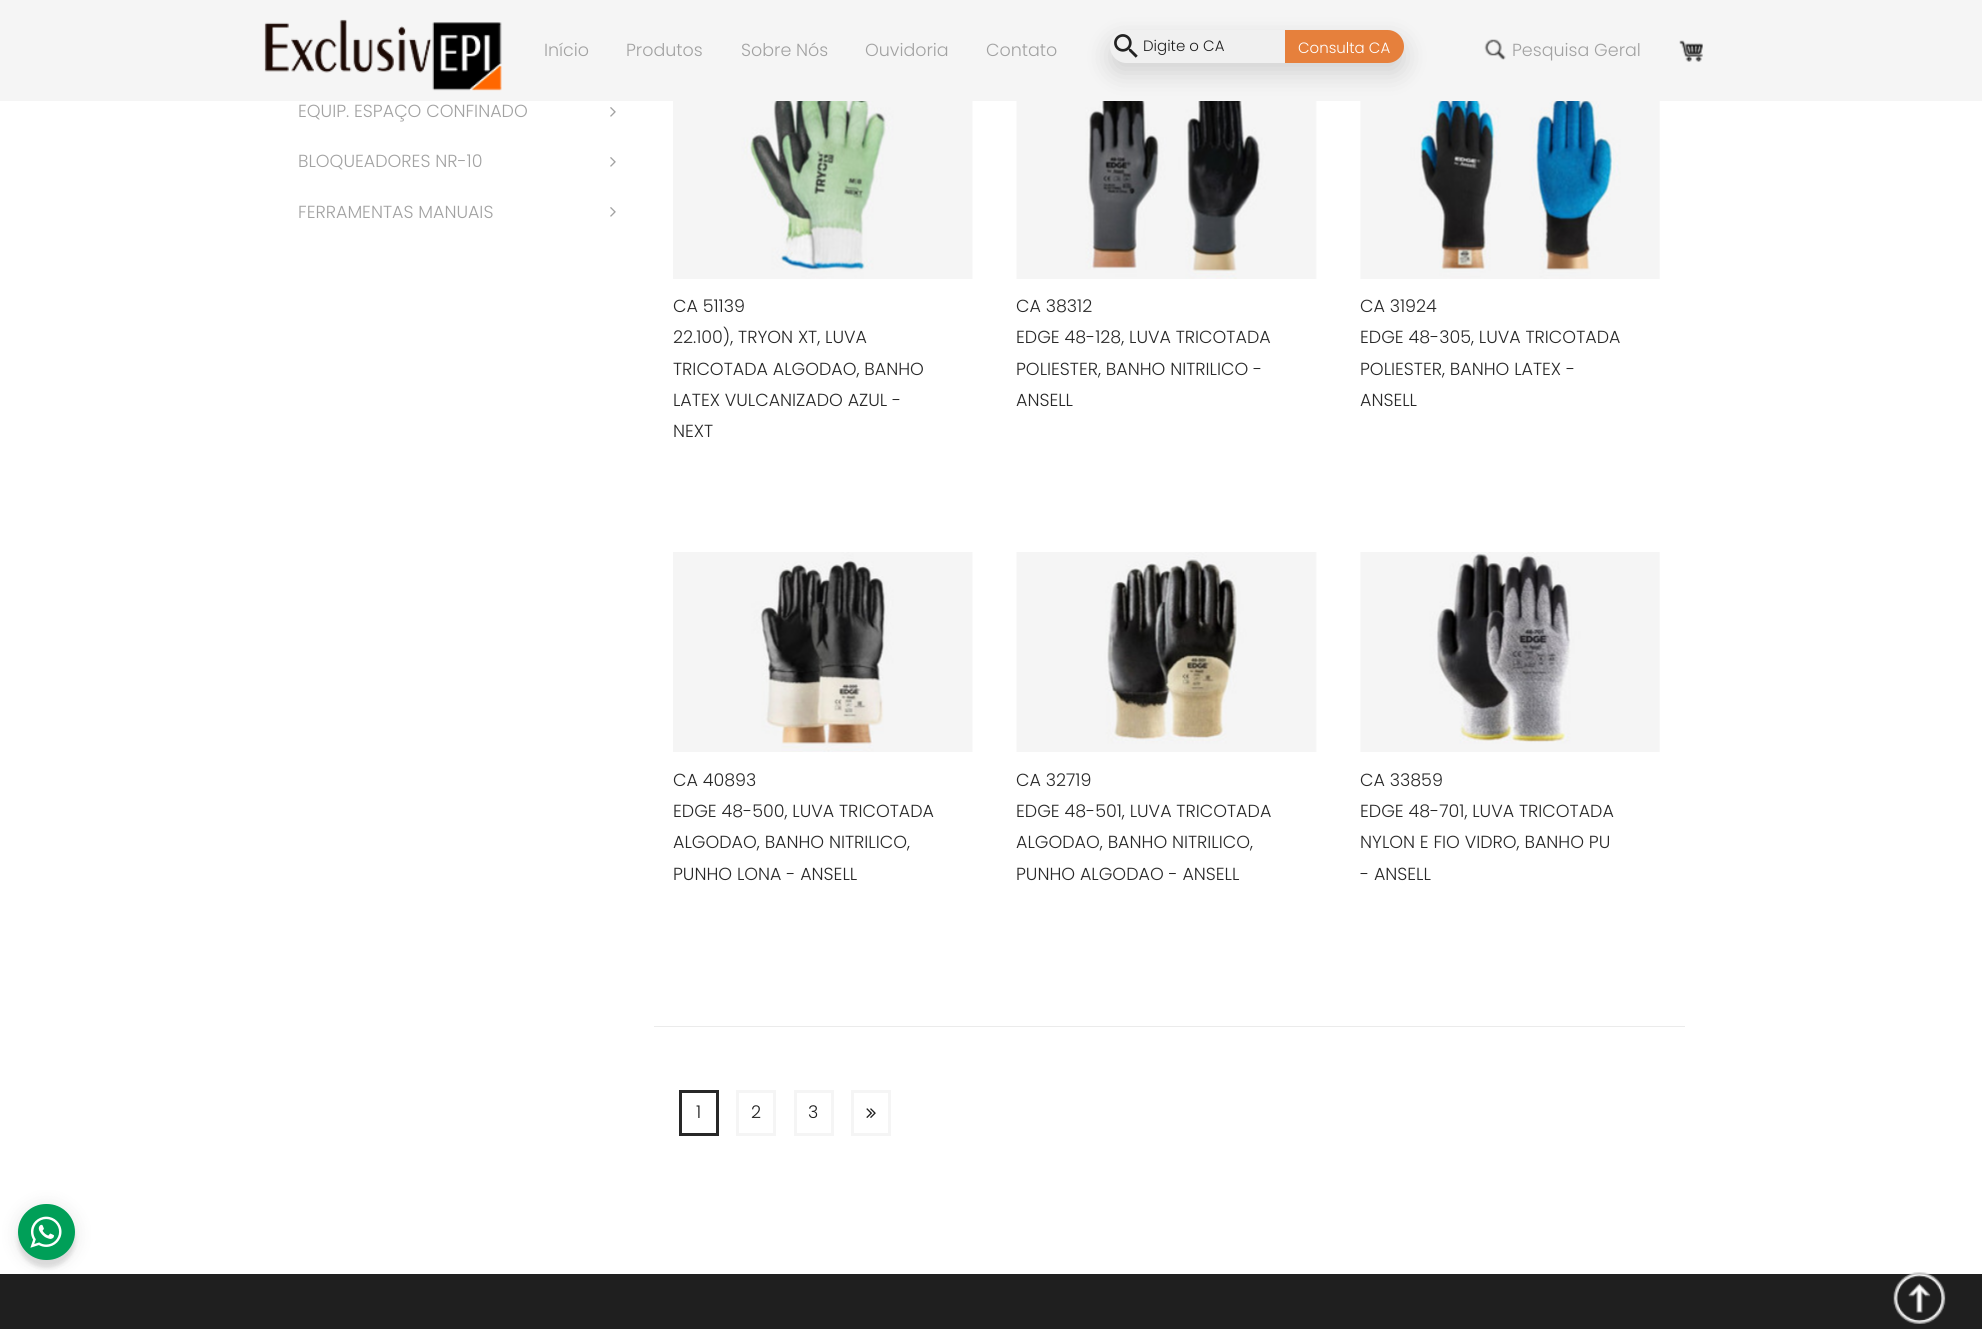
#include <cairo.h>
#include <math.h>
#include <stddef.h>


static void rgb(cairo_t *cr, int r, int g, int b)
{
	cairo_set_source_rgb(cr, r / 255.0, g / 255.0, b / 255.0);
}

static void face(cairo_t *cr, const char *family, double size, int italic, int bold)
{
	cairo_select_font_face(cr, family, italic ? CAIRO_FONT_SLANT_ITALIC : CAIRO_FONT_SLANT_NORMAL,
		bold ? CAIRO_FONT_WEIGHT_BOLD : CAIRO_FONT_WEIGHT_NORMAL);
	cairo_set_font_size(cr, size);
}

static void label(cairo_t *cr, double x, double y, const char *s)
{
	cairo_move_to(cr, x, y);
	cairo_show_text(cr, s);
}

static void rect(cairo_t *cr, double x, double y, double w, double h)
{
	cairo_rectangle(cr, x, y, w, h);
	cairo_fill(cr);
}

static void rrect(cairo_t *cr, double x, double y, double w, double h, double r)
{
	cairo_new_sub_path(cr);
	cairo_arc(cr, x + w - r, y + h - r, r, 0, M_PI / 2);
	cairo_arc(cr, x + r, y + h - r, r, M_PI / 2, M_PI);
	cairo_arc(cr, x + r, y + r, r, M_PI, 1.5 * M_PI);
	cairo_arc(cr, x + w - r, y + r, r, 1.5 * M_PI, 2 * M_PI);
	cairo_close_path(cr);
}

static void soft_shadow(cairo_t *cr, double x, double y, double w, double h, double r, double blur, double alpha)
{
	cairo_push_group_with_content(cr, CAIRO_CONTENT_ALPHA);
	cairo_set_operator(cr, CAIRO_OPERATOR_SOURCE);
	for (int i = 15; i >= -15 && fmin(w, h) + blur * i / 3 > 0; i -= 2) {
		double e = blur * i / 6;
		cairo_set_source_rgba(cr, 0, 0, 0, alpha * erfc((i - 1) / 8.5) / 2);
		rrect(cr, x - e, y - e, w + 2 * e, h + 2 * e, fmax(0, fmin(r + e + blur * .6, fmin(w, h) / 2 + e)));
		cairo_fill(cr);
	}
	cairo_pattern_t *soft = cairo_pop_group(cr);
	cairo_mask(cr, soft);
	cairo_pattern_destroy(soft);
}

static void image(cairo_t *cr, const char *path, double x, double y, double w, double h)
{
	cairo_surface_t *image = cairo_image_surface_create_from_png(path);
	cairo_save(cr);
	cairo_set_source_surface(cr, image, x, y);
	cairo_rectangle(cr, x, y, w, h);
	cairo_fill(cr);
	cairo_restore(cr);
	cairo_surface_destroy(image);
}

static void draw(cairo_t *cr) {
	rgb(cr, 255, 255, 255);
	cairo_paint(cr);
	rgb(cr, 245, 245, 245);
	rect(cr, 0, 0, 1982, 101);
	image(cr, "image6.png", 1016, 101, 301, 178);
	image(cr, "image7.png", 1360, 101, 300, 178);
	rgb(cr, 0, 0, 0);
	soft_shadow(cr, 1110, 40, 294, 33, 16.5, 12.5, 0.15);
	rgb(cr, 240, 240, 240);
	cairo_new_path(cr);
	cairo_move_to(cr, 1126.5, 30);
	cairo_line_to(cr, 1285, 30);
	cairo_line_to(cr, 1285, 63);
	cairo_line_to(cr, 1126.5, 63);
	cairo_curve_to(cr, 1117.5, 63, 1110, 55.5, 1110, 46.5);
	cairo_curve_to(cr, 1110, 37.5, 1117.5, 30, 1126.5, 30);
	cairo_close_path(cr);
	cairo_fill(cr);
	image(cr, "image0.png", 1114, 34, 24, 24);
	face(cr, "Poppins Light", 15, 0, 0);
	rgb(cr, 31, 31, 31);
	label(cr, 1143, 51, "Digite o CA");
	rgb(cr, 230, 128, 60);
	cairo_new_path(cr);
	cairo_move_to(cr, 1285, 30);
	cairo_line_to(cr, 1387.5, 30);
	cairo_curve_to(cr, 1396.5, 30, 1404, 37.5, 1404, 46.5);
	cairo_curve_to(cr, 1404, 55.5, 1396.5, 63, 1387.5, 63);
	cairo_line_to(cr, 1285, 63);
	cairo_close_path(cr);
	cairo_fill(cr);
	rgb(cr, 255, 255, 255);
	label(cr, 1298, 53, "Consulta CA");
	image(cr, "image1.png", 264, 19, 238, 72);
	face(cr, "Poppins Light", 17.5, 0, 0);
	rgb(cr, 162, 162, 162);
	label(cr, 544, 56, "Início");
	label(cr, 626, 56, "Produtos");
	label(cr, 741, 56, "Sobre Nós");
	label(cr, 865, 56, "Ouvidoria");
	label(cr, 986, 56, "Contato");
	image(cr, "image2.png", 1484, 39, 22, 21);
	label(cr, 1512, 56, "Pesquisa Geral");
	image(cr, "image3.png", 1679, 40, 24, 22);
	label(cr, 298, 117, "EQUIP. ESPAÇO CONFINADO");
	image(cr, "image4.png", 610, 107, 6, 10);
	label(cr, 298, 167, "BLOQUEADORES NR-10");
	image(cr, "image4.png", 610, 157, 6, 10);
	label(cr, 298, 218, "FERRAMENTAS MANUAIS");
	image(cr, "image4.png", 610, 207, 6, 10);
	image(cr, "image5.png", 673, 101, 300, 178);
	rgb(cr, 40, 40, 40);
	label(cr, 673, 312, "CA 51139");
	label(cr, 673, 343, "22.100), TRYON XT, LUVA");
	label(cr, 673, 375, "TRICOTADA ALGODAO, BANHO");
	label(cr, 673, 406, "LATEX VULCANIZADO AZUL -");
	label(cr, 673, 437, "NEXT");
	label(cr, 1016, 312, "CA 38312");
	label(cr, 1016, 343, "EDGE 48-128, LUVA TRICOTADA");
	label(cr, 1016, 375, "POLIESTER, BANHO NITRILICO -");
	label(cr, 1016, 406, "ANSELL");
	label(cr, 1360, 312, "CA 31924");
	label(cr, 1360, 343, "EDGE 48-305, LUVA TRICOTADA");
	label(cr, 1360, 375, "POLIESTER, BANHO LATEX -");
	label(cr, 1360, 406, "ANSELL");
	image(cr, "image8.png", 673, 552, 300, 200);
	label(cr, 673, 786, "CA 40893");
	label(cr, 673, 817, "EDGE 48-500, LUVA TRICOTADA");
	label(cr, 673, 848, "ALGODAO, BANHO NITRILICO,");
	label(cr, 673, 880, "PUNHO LONA - ANSELL");
	image(cr, "image9.png", 1016, 552, 301, 200);
	label(cr, 1016, 786, "CA 32719");
	label(cr, 1016, 817, "EDGE 48-501, LUVA TRICOTADA");
	label(cr, 1016, 848, "ALGODAO, BANHO NITRILICO,");
	label(cr, 1016, 880, "PUNHO ALGODAO - ANSELL");
	image(cr, "image10.png", 1360, 552, 300, 200);
	label(cr, 1360, 786, "CA 33859");
	label(cr, 1360, 817, "EDGE 48-701, LUVA TRICOTADA");
	label(cr, 1360, 848, "NYLON E FIO VIDRO, BANHO PU");
	label(cr, 1360, 880, "- ANSELL");
	rgb(cr, 235, 235, 235);
	rect(cr, 654, 1026, 1031, 1);
	cairo_rectangle(cr, 680.5, 1091.5, 37, 43);
	rgb(cr, 40, 40, 40);
	cairo_set_line_width(cr, 3);
	cairo_stroke(cr);
	rgb(cr, 31, 31, 31);
	label(cr, 696, 1118, "1");
	cairo_rectangle(cr, 737.5, 1091.5, 37, 43);
	rgb(cr, 245, 245, 245);
	cairo_stroke(cr);
	rgb(cr, 31, 31, 31);
	label(cr, 751, 1118, "2");
	cairo_rectangle(cr, 795.5, 1091.5, 37, 43);
	rgb(cr, 245, 245, 245);
	cairo_stroke(cr);
	rgb(cr, 31, 31, 31);
	label(cr, 808, 1118, "3");
	cairo_rectangle(cr, 852.5, 1091.5, 37, 43);
	rgb(cr, 245, 245, 245);
	cairo_stroke(cr);
	image(cr, "image11.png", 866, 1108, 10, 10);
	rgb(cr, 31, 31, 31);
	rect(cr, 0, 1274, 1982, 55);
	rgb(cr, 0, 0, 0);
	soft_shadow(cr, 18, 1206, 57, 57, 28.5, 9, 0.1);
	soft_shadow(cr, 18, 1211, 57, 57, 28.5, 2, 0.1);
	rgb(cr, 0, 159, 88);
	rrect(cr, 18, 1204, 57, 56, 28);
	cairo_fill(cr);
	image(cr, "image12.png", 30, 1216, 32, 32);
	image(cr, "image13.png", 1893, 1272, 53, 52);
}

int main(void) {
	cairo_surface_t *surface = cairo_image_surface_create(CAIRO_FORMAT_RGB24, 1982, 1329);
	cairo_t *cr = cairo_create(surface);
	cairo_font_options_t *options = cairo_font_options_create();
	cairo_font_options_set_hint_metrics(options, CAIRO_HINT_METRICS_OFF);
	cairo_font_options_set_hint_style(options, CAIRO_HINT_STYLE_NONE);
	cairo_set_font_options(cr, options);
	cairo_set_miter_limit(cr, 4);
	draw(cr);
	cairo_surface_write_to_png(surface, "render.png");
	cairo_font_options_destroy(options);
	cairo_destroy(cr);
	cairo_surface_destroy(surface);
	return 0;
}
